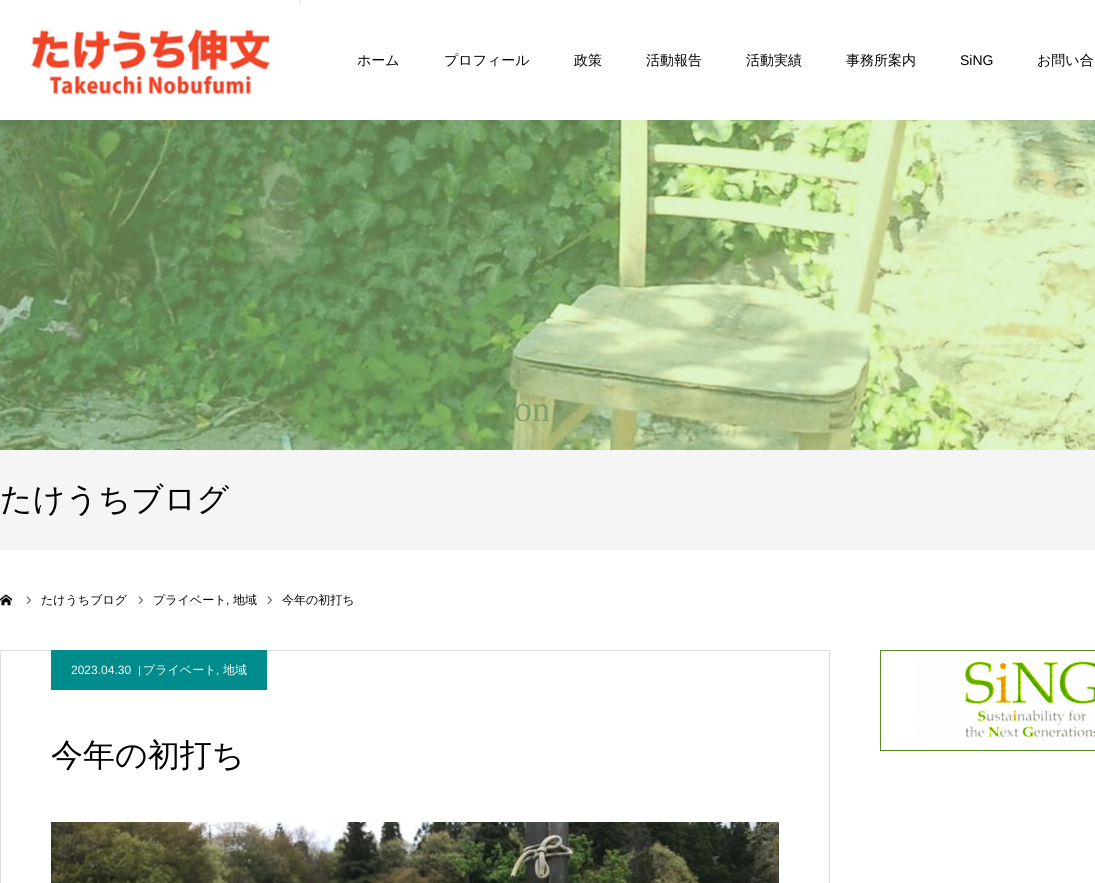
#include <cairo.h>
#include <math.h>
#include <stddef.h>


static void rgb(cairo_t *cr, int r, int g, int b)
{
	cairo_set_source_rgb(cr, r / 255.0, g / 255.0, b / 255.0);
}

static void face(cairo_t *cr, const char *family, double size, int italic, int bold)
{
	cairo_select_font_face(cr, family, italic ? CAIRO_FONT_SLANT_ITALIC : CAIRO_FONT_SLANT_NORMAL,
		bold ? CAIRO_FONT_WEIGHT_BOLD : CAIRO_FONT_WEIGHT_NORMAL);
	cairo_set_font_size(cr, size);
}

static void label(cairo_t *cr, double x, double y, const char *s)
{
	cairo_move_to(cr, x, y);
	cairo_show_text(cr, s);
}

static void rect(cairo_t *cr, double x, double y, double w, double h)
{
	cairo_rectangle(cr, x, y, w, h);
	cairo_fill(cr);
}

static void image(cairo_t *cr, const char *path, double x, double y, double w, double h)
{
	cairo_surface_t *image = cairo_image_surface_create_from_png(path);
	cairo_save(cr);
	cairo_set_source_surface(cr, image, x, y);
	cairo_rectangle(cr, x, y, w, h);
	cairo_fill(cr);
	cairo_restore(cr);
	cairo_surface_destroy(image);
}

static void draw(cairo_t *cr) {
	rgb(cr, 255, 255, 255);
	cairo_paint(cr);
	rgb(cr, 221, 221, 221);
	rect(cr, 299, 0, 1, 120);
	image(cr, "image0.png", 31, 3, 269, 116);
	face(cr, "WenQuanYi Zen Hei Medium", 14, 0, 0);
	rgb(cr, 0, 0, 0);
	label(cr, 357, 65, "ホーム");
	label(cr, 444, 65, "プロフィール");
	label(cr, 574, 65, "政策");
	label(cr, 646, 65, "活動報告");
	label(cr, 746, 65, "活動実績");
	label(cr, 846, 65, "事務所案内");
	face(cr, "Liberation Sans", 14, 0, 0);
	label(cr, 960, 65, "SiNG");
	face(cr, "WenQuanYi Zen Hei Medium", 14, 0, 0);
	label(cr, 1037, 65, "お問い合");
	image(cr, "image1.png", 0, 120, 1095, 330);
	face(cr, "Liberation Serif", 36, 0, 0);
	rgb(cr, 125, 159, 105);
	label(cr, 514, 421, "on");
	rgb(cr, 245, 245, 245);
	rect(cr, 0, 450, 1095, 100);
	face(cr, "WenQuanYi Zen Hei Medium", 32, 0, 0);
	rgb(cr, 0, 0, 0);
	label(cr, 0, 510, "たけうちブログ");
	image(cr, "image2.png", 0, 594, 12, 12);
	image(cr, "image3.png", 26, 596, 5, 8);
	face(cr, "WenQuanYi Zen Hei Medium", 12, 0, 0);
	label(cr, 41, 604, "たけうちブログ");
	image(cr, "image3.png", 138, 596, 5, 8);
	label(cr, 153, 604, "プライベート");
	face(cr, "Liberation Sans", 12, 0, 0);
	label(cr, 226, 604, ",");
	face(cr, "WenQuanYi Zen Hei Medium", 12, 0, 0);
	label(cr, 233, 604, "地域");
	image(cr, "image3.png", 267, 596, 5, 8);
	label(cr, 282, 604, "今年の初打ち");
	cairo_rectangle(cr, 0.5, 650.5, 829, 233);
	rgb(cr, 221, 221, 221);
	cairo_set_line_width(cr, 1);
	cairo_stroke(cr);
	rgb(cr, 0, 140, 140);
	rect(cr, 51, 650, 216, 40);
	face(cr, "Liberation Sans", 12, 0, 0);
	rgb(cr, 255, 255, 255);
	label(cr, 71, 674, "2023.04.30");
	rect(cr, 139, 666, 1, 10);
	face(cr, "WenQuanYi Zen Hei Medium", 12, 0, 0);
	label(cr, 143, 674, "プライベート");
	face(cr, "Liberation Sans", 12, 0, 0);
	label(cr, 216, 674, ",");
	face(cr, "WenQuanYi Zen Hei Medium", 12, 0, 0);
	label(cr, 223, 674, "地域");
	face(cr, "WenQuanYi Zen Hei Medium", 32, 0, 0);
	rgb(cr, 0, 0, 0);
	label(cr, 51, 766, "今年の初打ち");
	image(cr, "image4.png", 51, 822, 728, 61);
	cairo_rectangle(cr, 880.5, 650.5, 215, 100);
	rgb(cr, 85, 141, 29);
	cairo_stroke(cr);
	image(cr, "image5.png", 914, 657, 181, 81);
}

int main(void) {
	cairo_surface_t *surface = cairo_image_surface_create(CAIRO_FORMAT_RGB24, 1095, 883);
	cairo_t *cr = cairo_create(surface);
	cairo_font_options_t *options = cairo_font_options_create();
	cairo_font_options_set_hint_metrics(options, CAIRO_HINT_METRICS_OFF);
	cairo_font_options_set_hint_style(options, CAIRO_HINT_STYLE_NONE);
	cairo_set_font_options(cr, options);
	cairo_set_miter_limit(cr, 4);
	draw(cr);
	cairo_surface_write_to_png(surface, "render.png");
	cairo_font_options_destroy(options);
	cairo_destroy(cr);
	cairo_surface_destroy(surface);
	return 0;
}
